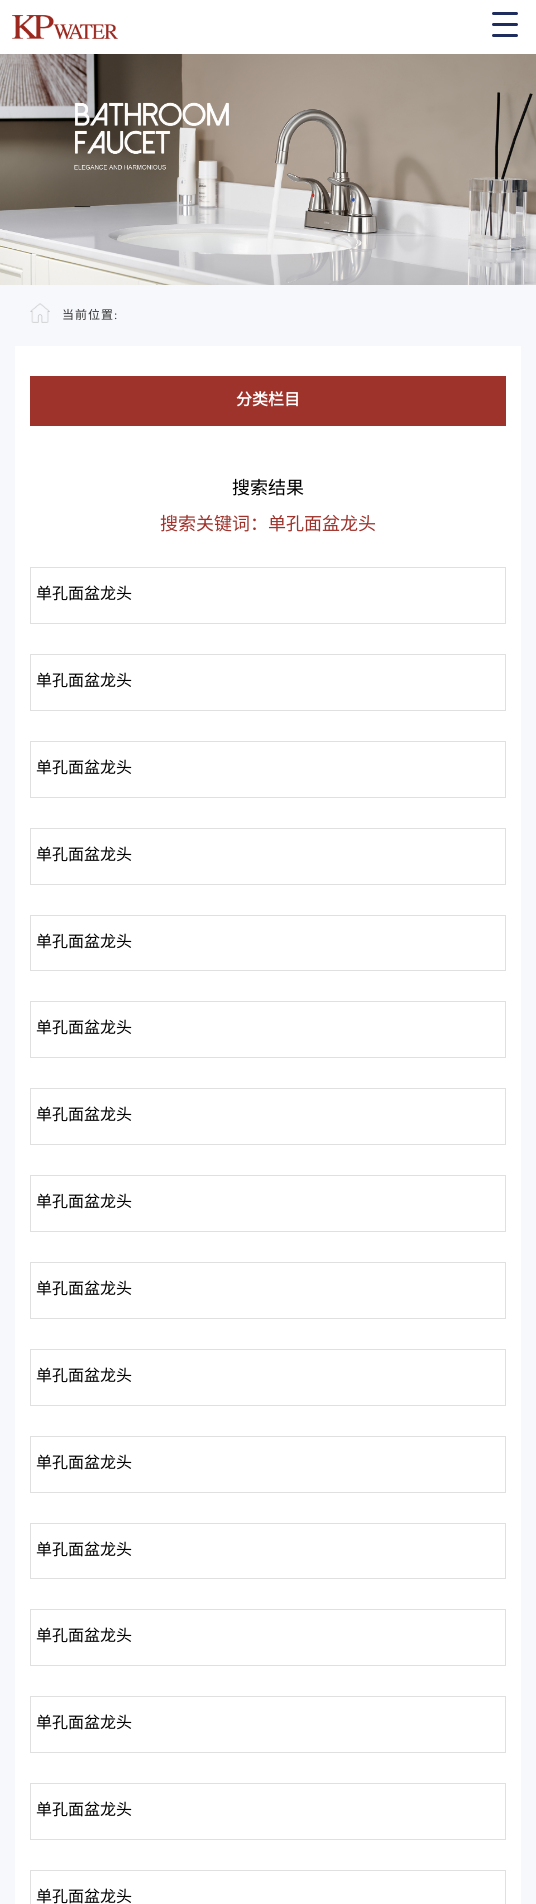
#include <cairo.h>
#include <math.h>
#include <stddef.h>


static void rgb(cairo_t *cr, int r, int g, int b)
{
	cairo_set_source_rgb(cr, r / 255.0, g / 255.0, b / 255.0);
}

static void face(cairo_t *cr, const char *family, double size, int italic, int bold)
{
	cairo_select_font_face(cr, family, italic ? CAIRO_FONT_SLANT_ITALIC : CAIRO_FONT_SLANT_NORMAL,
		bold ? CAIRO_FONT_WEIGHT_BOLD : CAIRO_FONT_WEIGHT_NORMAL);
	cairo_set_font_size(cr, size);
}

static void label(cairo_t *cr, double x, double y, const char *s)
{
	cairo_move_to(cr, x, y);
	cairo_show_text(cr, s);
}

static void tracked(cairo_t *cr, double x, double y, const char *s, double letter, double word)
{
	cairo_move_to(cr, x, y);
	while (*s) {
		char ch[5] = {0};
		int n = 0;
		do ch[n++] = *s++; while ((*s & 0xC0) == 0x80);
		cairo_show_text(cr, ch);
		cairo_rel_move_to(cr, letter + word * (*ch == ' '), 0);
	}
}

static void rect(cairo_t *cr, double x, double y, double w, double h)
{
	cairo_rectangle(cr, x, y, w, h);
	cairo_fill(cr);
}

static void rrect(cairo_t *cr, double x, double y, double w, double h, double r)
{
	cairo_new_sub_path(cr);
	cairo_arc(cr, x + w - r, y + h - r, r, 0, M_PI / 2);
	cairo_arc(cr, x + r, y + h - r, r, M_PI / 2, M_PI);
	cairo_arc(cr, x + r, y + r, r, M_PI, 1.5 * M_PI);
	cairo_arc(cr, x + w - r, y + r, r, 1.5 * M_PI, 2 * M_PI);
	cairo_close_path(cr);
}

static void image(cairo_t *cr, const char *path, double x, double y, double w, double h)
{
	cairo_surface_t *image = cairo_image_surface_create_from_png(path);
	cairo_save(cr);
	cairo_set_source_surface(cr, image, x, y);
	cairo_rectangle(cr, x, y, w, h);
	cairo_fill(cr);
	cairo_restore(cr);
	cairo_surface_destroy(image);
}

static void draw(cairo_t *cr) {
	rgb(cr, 255, 255, 255);
	cairo_paint(cr);
	image(cr, "image0.png", 12, 15, 106, 24);
	rgb(cr, 31, 44, 94);
	rrect(cr, 492, 12, 26, 3, 1.5);
	cairo_fill(cr);
	rrect(cr, 492, 23, 26, 3, 1.5);
	cairo_fill(cr);
	rrect(cr, 492, 34, 26, 3, 1.5);
	cairo_fill(cr);
	image(cr, "image1.png", 0, 54, 536, 231);
	rgb(cr, 247, 248, 252);
	rect(cr, 0, 285, 536, 1619);
	image(cr, "image2.png", 30, 303, 20, 20);
	face(cr, "Noto Sans CJK SC", 12, 0, 0);
	rgb(cr, 51, 51, 51);
	tracked(cr, 62, 319, "当前位置", 1, 0);
	face(cr, "Liberation Serif", 12, 0, 0);
	tracked(cr, 114, 319, ":", 1, 0);
	rgb(cr, 255, 255, 255);
	rect(cr, 15, 346, 506, 1558);
	rgb(cr, 158, 51, 44);
	rect(cr, 30, 376, 476, 50);
	face(cr, "Noto Sans CJK SC", 16, 0, 1);
	rgb(cr, 255, 255, 255);
	label(cr, 236, 405, "分类栏目");
	face(cr, "Noto Sans CJK SC", 18, 0, 0);
	rgb(cr, 0, 0, 0);
	label(cr, 232, 494, "搜索结果");
	rgb(cr, 158, 51, 44);
	label(cr, 160, 530, "搜索关键词：单孔面盆龙头");
	cairo_rectangle(cr, 30.5, 567.5, 475, 56);
	rgb(cr, 224, 224, 224);
	cairo_set_line_width(cr, 1);
	cairo_stroke(cr);
	face(cr, "Noto Sans CJK SC", 16, 0, 0);
	rgb(cr, 0, 0, 0);
	label(cr, 36, 599, "单孔面盆龙头");
	cairo_rectangle(cr, 30.5, 654.5, 475, 56);
	rgb(cr, 224, 224, 224);
	cairo_stroke(cr);
	rgb(cr, 0, 0, 0);
	label(cr, 36, 686, "单孔面盆龙头");
	cairo_rectangle(cr, 30.5, 741.5, 475, 56);
	rgb(cr, 224, 224, 224);
	cairo_stroke(cr);
	rgb(cr, 0, 0, 0);
	label(cr, 36, 773, "单孔面盆龙头");
	cairo_rectangle(cr, 30.5, 828.5, 475, 56);
	rgb(cr, 224, 224, 224);
	cairo_stroke(cr);
	rgb(cr, 0, 0, 0);
	label(cr, 36, 860, "单孔面盆龙头");
	cairo_rectangle(cr, 30.5, 915.5, 475, 55);
	rgb(cr, 224, 224, 224);
	cairo_stroke(cr);
	rgb(cr, 0, 0, 0);
	label(cr, 36, 947, "单孔面盆龙头");
	cairo_rectangle(cr, 30.5, 1001.5, 475, 56);
	rgb(cr, 224, 224, 224);
	cairo_stroke(cr);
	rgb(cr, 0, 0, 0);
	label(cr, 36, 1033, "单孔面盆龙头");
	cairo_rectangle(cr, 30.5, 1088.5, 475, 56);
	rgb(cr, 224, 224, 224);
	cairo_stroke(cr);
	rgb(cr, 0, 0, 0);
	label(cr, 36, 1120, "单孔面盆龙头");
	cairo_rectangle(cr, 30.5, 1175.5, 475, 56);
	rgb(cr, 224, 224, 224);
	cairo_stroke(cr);
	rgb(cr, 0, 0, 0);
	label(cr, 36, 1207, "单孔面盆龙头");
	cairo_rectangle(cr, 30.5, 1262.5, 475, 56);
	rgb(cr, 224, 224, 224);
	cairo_stroke(cr);
	rgb(cr, 0, 0, 0);
	label(cr, 36, 1294, "单孔面盆龙头");
	cairo_rectangle(cr, 30.5, 1349.5, 475, 56);
	rgb(cr, 224, 224, 224);
	cairo_stroke(cr);
	rgb(cr, 0, 0, 0);
	label(cr, 36, 1381, "单孔面盆龙头");
	cairo_rectangle(cr, 30.5, 1436.5, 475, 56);
	rgb(cr, 224, 224, 224);
	cairo_stroke(cr);
	rgb(cr, 0, 0, 0);
	label(cr, 36, 1468, "单孔面盆龙头");
	cairo_rectangle(cr, 30.5, 1523.5, 475, 55);
	rgb(cr, 224, 224, 224);
	cairo_stroke(cr);
	rgb(cr, 0, 0, 0);
	label(cr, 36, 1555, "单孔面盆龙头");
	cairo_rectangle(cr, 30.5, 1609.5, 475, 56);
	rgb(cr, 224, 224, 224);
	cairo_stroke(cr);
	rgb(cr, 0, 0, 0);
	label(cr, 36, 1641, "单孔面盆龙头");
	cairo_rectangle(cr, 30.5, 1696.5, 475, 56);
	rgb(cr, 224, 224, 224);
	cairo_stroke(cr);
	rgb(cr, 0, 0, 0);
	label(cr, 36, 1728, "单孔面盆龙头");
	cairo_rectangle(cr, 30.5, 1783.5, 475, 56);
	rgb(cr, 224, 224, 224);
	cairo_stroke(cr);
	rgb(cr, 0, 0, 0);
	label(cr, 36, 1815, "单孔面盆龙头");
	cairo_rectangle(cr, 30.5, 1870.5, 475, 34);
	rgb(cr, 224, 224, 224);
	cairo_stroke(cr);
	rgb(cr, 0, 0, 0);
	label(cr, 36, 1902, "单孔面盆龙头");
}

int main(void) {
	cairo_surface_t *surface = cairo_image_surface_create(CAIRO_FORMAT_RGB24, 536, 1904);
	cairo_t *cr = cairo_create(surface);
	cairo_font_options_t *options = cairo_font_options_create();
	cairo_font_options_set_hint_metrics(options, CAIRO_HINT_METRICS_OFF);
	cairo_font_options_set_hint_style(options, CAIRO_HINT_STYLE_NONE);
	cairo_set_font_options(cr, options);
	cairo_set_miter_limit(cr, 4);
	draw(cr);
	cairo_surface_write_to_png(surface, "render.png");
	cairo_font_options_destroy(options);
	cairo_destroy(cr);
	cairo_surface_destroy(surface);
	return 0;
}
